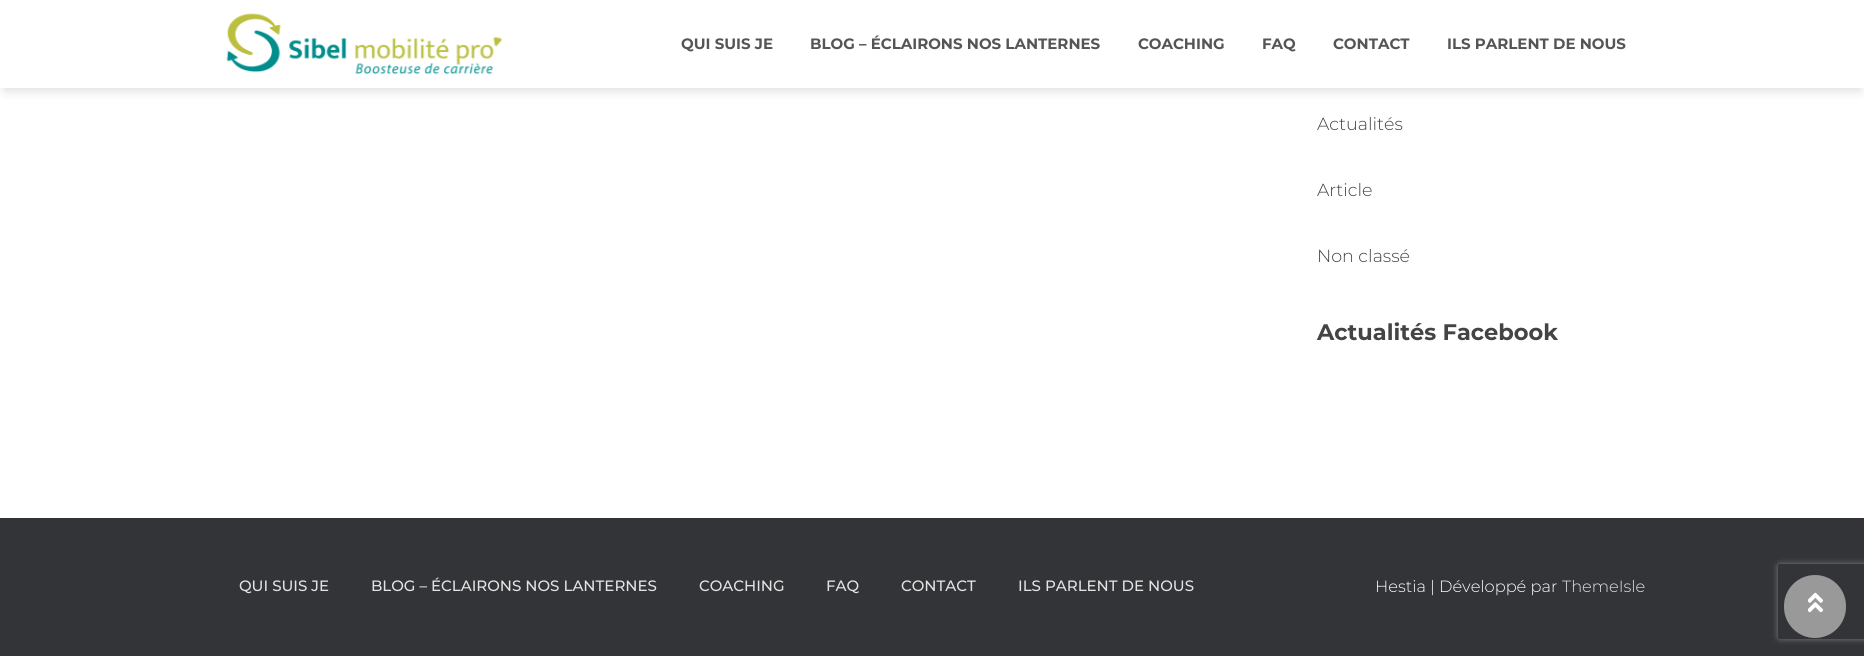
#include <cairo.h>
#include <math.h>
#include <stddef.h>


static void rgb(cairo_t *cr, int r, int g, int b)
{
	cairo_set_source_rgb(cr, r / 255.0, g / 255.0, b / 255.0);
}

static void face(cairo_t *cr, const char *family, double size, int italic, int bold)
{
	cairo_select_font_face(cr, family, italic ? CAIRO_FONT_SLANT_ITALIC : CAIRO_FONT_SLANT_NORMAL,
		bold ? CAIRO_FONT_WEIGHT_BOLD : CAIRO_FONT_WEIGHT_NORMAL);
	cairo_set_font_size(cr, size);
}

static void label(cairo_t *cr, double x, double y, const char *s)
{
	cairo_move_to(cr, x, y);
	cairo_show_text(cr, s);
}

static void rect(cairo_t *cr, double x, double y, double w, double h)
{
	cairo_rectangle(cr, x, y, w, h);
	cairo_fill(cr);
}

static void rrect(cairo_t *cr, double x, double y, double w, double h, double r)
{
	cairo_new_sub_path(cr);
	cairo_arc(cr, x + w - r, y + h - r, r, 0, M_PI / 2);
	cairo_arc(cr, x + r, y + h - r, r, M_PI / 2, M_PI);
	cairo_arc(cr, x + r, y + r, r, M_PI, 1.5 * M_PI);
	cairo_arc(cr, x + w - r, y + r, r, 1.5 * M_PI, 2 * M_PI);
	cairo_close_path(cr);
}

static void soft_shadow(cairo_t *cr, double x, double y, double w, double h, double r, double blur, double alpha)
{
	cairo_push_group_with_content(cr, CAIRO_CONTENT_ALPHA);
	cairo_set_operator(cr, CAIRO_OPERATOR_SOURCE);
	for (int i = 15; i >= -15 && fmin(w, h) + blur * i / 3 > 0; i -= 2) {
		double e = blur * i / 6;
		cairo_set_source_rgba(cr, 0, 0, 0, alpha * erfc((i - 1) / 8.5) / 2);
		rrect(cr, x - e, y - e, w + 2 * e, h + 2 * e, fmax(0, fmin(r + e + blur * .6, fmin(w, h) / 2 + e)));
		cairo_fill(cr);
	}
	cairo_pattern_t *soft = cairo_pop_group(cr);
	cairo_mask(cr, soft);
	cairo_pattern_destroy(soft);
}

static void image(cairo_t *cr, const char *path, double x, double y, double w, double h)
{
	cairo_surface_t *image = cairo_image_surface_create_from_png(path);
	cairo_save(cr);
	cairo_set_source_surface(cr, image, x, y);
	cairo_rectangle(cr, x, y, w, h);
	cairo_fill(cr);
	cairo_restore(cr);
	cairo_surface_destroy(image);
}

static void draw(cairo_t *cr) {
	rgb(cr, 50, 52, 55);
	cairo_paint(cr);
	rgb(cr, 255, 255, 255);
	rect(cr, 0, 88, 1864, 430);
	rgb(cr, 0, 0, 0);
	soft_shadow(cr, 5, 13, 1855, 77, 0, 6, 0.15);
	rgb(cr, 255, 255, 255);
	rect(cr, 0, 0, 1864, 88);
	image(cr, "image0.png", 226, 13, 277, 62);
	face(cr, "Montserrat", 15, 0, 1);
	rgb(cr, 85, 85, 85);
	label(cr, 681, 49, "QUI SUIS JE");
	label(cr, 810, 49, "BLOG – ÉCLAIRONS NOS LANTERNES");
	label(cr, 1138, 49, "COACHING");
	label(cr, 1262, 49, "FAQ");
	label(cr, 1333, 49, "CONTACT");
	label(cr, 1447, 49, "ILS PARLENT DE NOUS");
	face(cr, "Montserrat Light", 17.5, 0, 0);
	rgb(cr, 68, 68, 68);
	label(cr, 1317, 130, "Actualités");
	label(cr, 1317, 196, "Article");
	label(cr, 1317, 262, "Non classé");
	face(cr, "Montserrat", 22.5, 0, 1);
	label(cr, 1317, 340, "Actualités Facebook");
	face(cr, "Montserrat Medium", 15, 0, 0);
	rgb(cr, 226, 227, 227);
	label(cr, 239, 591, "QUI SUIS JE");
	label(cr, 371, 591, "BLOG – ÉCLAIRONS NOS LANTERNES");
	label(cr, 699, 591, "COACHING");
	label(cr, 826, 591, "FAQ");
	label(cr, 901, 591, "CONTACT");
	label(cr, 1018, 591, "ILS PARLENT DE NOUS");
	face(cr, "Montserrat Light", 16.25, 0, 0);
	rgb(cr, 255, 255, 255);
	label(cr, 1375, 592, "Hestia | Développé par");
	rgb(cr, 226, 227, 227);
	label(cr, 1562, 592, "ThemeIsle");
	cairo_save(cr);
	cairo_set_fill_rule(cr, CAIRO_FILL_RULE_EVEN_ODD);
	cairo_new_path(cr);
	cairo_move_to(cr, 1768, 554);
	cairo_line_to(cr, 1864, 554);
	cairo_line_to(cr, 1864, 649);
	cairo_line_to(cr, 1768, 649);
	cairo_close_path(cr);
	cairo_move_to(cr, 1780.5, 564);
	cairo_line_to(cr, 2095.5, 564);
	cairo_curve_to(cr, 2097, 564, 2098, 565, 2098, 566.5);
	cairo_line_to(cr, 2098, 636.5);
	cairo_curve_to(cr, 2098, 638, 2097, 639, 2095.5, 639);
	cairo_line_to(cr, 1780.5, 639);
	cairo_curve_to(cr, 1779, 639, 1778, 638, 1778, 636.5);
	cairo_line_to(cr, 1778, 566.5);
	cairo_curve_to(cr, 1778, 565, 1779, 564, 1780.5, 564);
	cairo_close_path(cr);
	cairo_clip(cr);
	rgb(cr, 128, 128, 128);
	soft_shadow(cr, 1778, 564, 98, 75, 2.5, 3, 1);
	cairo_restore(cr);
	rgb(cr, 153, 153, 153);
	rrect(cr, 1784, 575, 62, 63, 31);
	cairo_fill(cr);
	image(cr, "image1.png", 1808, 592, 15, 21);
}

int main(void) {
	cairo_surface_t *surface = cairo_image_surface_create(CAIRO_FORMAT_RGB24, 1864, 656);
	cairo_t *cr = cairo_create(surface);
	cairo_font_options_t *options = cairo_font_options_create();
	cairo_font_options_set_hint_metrics(options, CAIRO_HINT_METRICS_OFF);
	cairo_font_options_set_hint_style(options, CAIRO_HINT_STYLE_NONE);
	cairo_set_font_options(cr, options);
	cairo_set_miter_limit(cr, 4);
	draw(cr);
	cairo_surface_write_to_png(surface, "render.png");
	cairo_font_options_destroy(options);
	cairo_destroy(cr);
	cairo_surface_destroy(surface);
	return 0;
}
